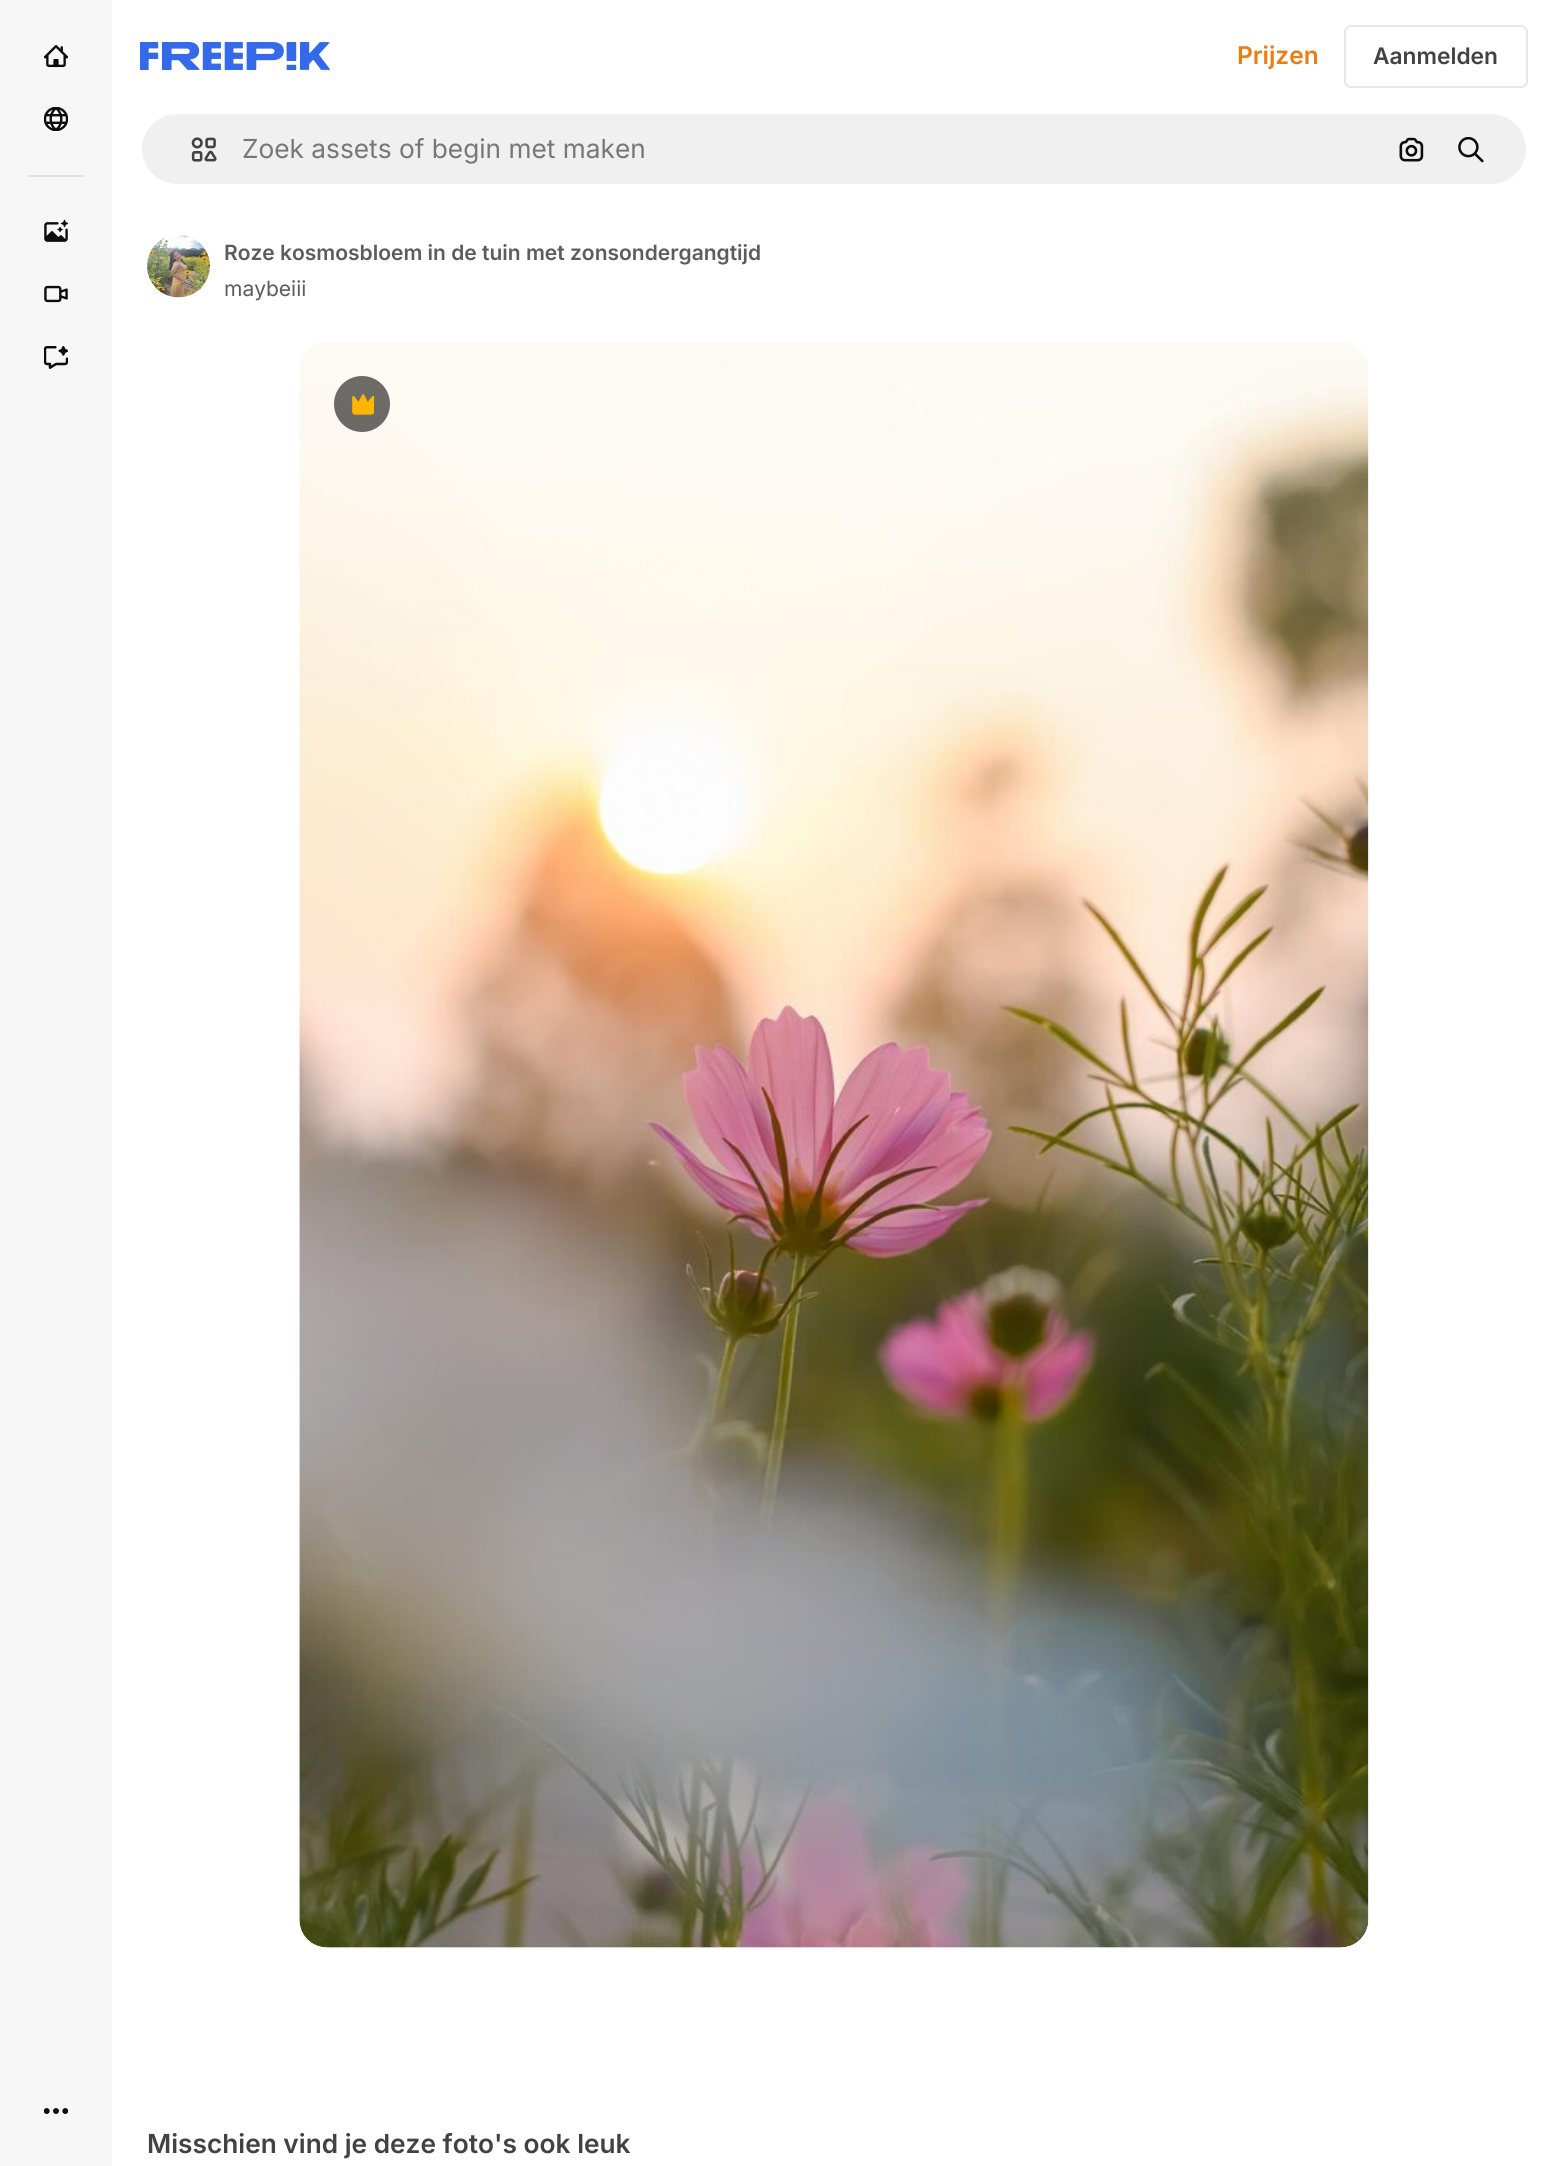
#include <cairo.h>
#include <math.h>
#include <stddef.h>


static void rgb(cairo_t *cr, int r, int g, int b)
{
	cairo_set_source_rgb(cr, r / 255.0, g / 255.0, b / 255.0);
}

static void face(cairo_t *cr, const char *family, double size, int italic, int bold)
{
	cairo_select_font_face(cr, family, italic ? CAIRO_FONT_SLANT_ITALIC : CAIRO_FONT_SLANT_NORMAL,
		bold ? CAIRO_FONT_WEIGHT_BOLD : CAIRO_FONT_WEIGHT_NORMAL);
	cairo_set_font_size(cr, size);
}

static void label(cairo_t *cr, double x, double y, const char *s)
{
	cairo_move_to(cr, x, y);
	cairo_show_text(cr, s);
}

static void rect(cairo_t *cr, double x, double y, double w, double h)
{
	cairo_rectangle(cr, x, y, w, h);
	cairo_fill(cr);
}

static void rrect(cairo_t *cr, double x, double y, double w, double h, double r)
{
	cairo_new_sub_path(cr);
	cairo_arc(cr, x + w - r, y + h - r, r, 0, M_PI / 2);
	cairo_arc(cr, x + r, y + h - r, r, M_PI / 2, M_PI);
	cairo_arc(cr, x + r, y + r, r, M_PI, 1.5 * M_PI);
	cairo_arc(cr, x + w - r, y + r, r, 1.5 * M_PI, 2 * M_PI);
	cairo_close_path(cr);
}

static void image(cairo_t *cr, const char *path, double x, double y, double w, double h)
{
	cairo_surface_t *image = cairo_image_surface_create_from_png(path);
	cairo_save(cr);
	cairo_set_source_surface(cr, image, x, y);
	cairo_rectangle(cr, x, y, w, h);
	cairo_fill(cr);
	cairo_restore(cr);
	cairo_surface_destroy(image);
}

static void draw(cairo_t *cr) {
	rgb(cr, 255, 255, 255);
	cairo_paint(cr);
	rgb(cr, 247, 247, 247);
	rect(cr, 0, 0, 112, 2166);
	image(cr, "image0.png", 44, 45, 24, 23);
	image(cr, "image1.png", 44, 107, 24, 24);
	rgb(cr, 224, 224, 224);
	rect(cr, 28, 175, 56, 2);
	image(cr, "image2.png", 44, 219, 24, 23);
	image(cr, "image3.png", 44, 285, 24, 18);
	image(cr, "image4.png", 44, 346, 24, 23);
	image(cr, "image5.png", 44, 2108, 24, 6);
	image(cr, "image6.png", 140, 42, 190, 28);
	face(cr, "Inter SemiBold", 24.5, 0, 0);
	rgb(cr, 234, 126, 17);
	label(cr, 1237, 64, "Prijzen");
	rrect(cr, 1345, 26, 182, 61, 6);
	rgb(cr, 231, 231, 231);
	cairo_stroke(cr);
	face(cr, "Inter SemiBold", 22.75, 0, 0);
	rgb(cr, 66, 66, 66);
	label(cr, 1373, 64, "Aanmelden");
	rgb(cr, 240, 240, 240);
	rrect(cr, 141, 113, 1386, 72, 36);
	cairo_fill_preserve(cr);
	rgb(cr, 255, 255, 255);
	cairo_stroke(cr);
	image(cr, "image7.png", 191, 137, 26, 25);
	face(cr, "Inter", 26.25, 0, 0);
	rgb(cr, 119, 119, 119);
	label(cr, 242, 158, "Zoek assets of begin met maken");
	image(cr, "image8.png", 1399, 137, 25, 25);
	image(cr, "image9.png", 1458, 137, 26, 26);
	image(cr, "image10.png", 147, 235, 63, 63);
	face(cr, "Inter SemiBold", 21, 0, 0);
	rgb(cr, 92, 92, 92);
	label(cr, 224, 260, "Roze kosmosbloem in de tuin met zonsondergangtijd");
	face(cr, "Inter", 21, 0, 0);
	label(cr, 224, 296, "maybeiii");
	image(cr, "image11.png", 299, 341, 1070, 1607);
	cairo_set_source_rgba(cr, 0.051, 0.051, 0.051, 0.6);
	cairo_arc(cr, 362, 404, 28, 0, 2 * M_PI);
	cairo_fill(cr);
	image(cr, "image12.png", 352, 394, 23, 21);
	face(cr, "Inter SemiBold", 26.25, 0, 0);
	rgb(cr, 66, 66, 66);
	label(cr, 147, 2153, "Misschien vind je deze foto's ook leuk");
}

int main(void) {
	cairo_surface_t *surface = cairo_image_surface_create(CAIRO_FORMAT_RGB24, 1555, 2166);
	cairo_t *cr = cairo_create(surface);
	cairo_font_options_t *options = cairo_font_options_create();
	cairo_font_options_set_hint_metrics(options, CAIRO_HINT_METRICS_OFF);
	cairo_font_options_set_hint_style(options, CAIRO_HINT_STYLE_NONE);
	cairo_set_font_options(cr, options);
	cairo_set_miter_limit(cr, 4);
	draw(cr);
	cairo_surface_write_to_png(surface, "render.png");
	cairo_font_options_destroy(options);
	cairo_destroy(cr);
	cairo_surface_destroy(surface);
	return 0;
}
